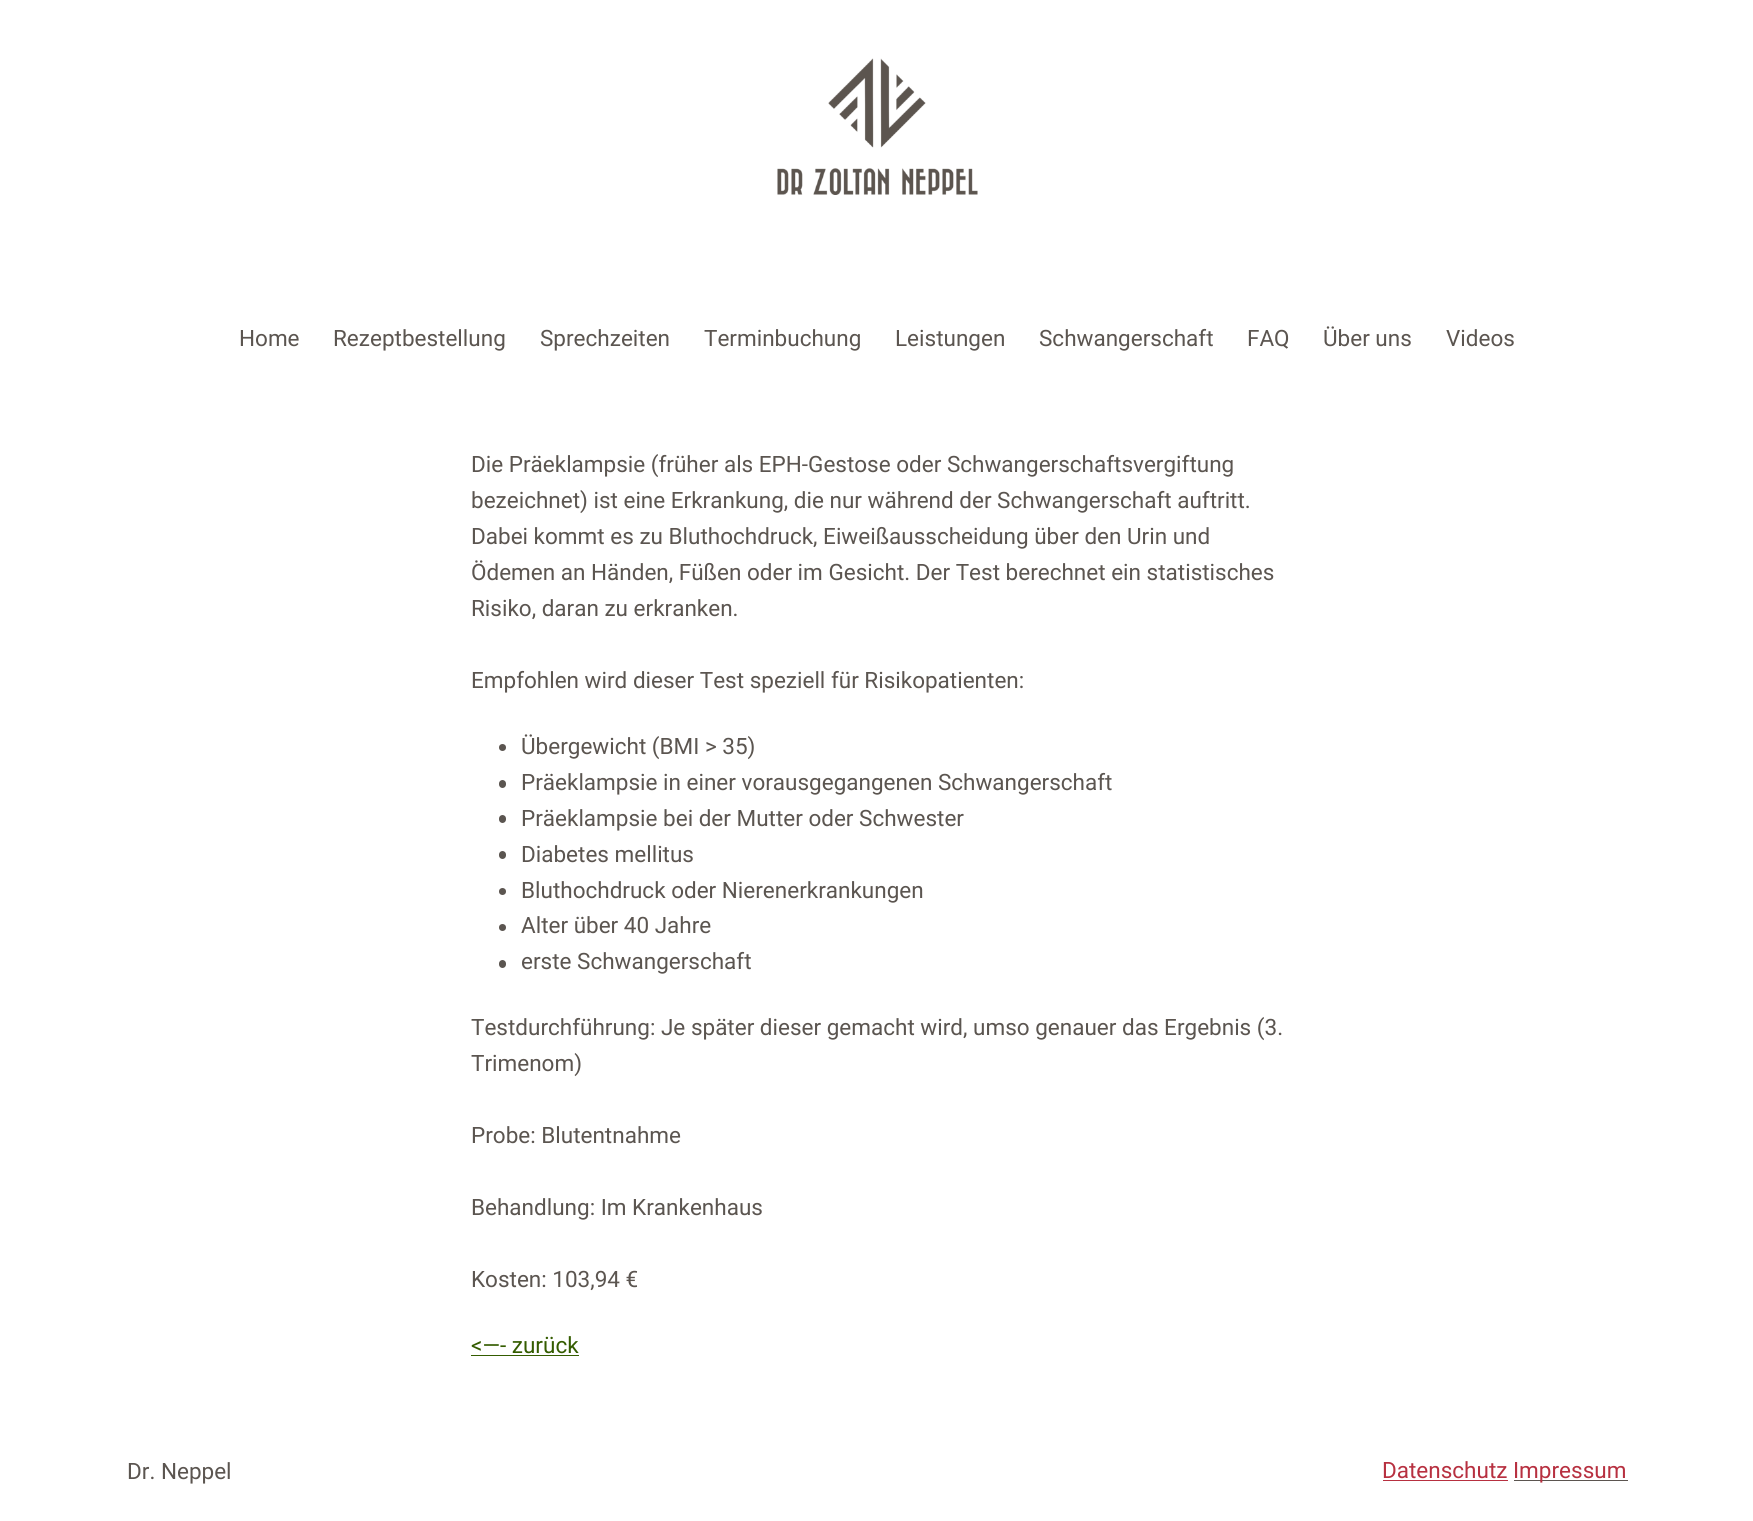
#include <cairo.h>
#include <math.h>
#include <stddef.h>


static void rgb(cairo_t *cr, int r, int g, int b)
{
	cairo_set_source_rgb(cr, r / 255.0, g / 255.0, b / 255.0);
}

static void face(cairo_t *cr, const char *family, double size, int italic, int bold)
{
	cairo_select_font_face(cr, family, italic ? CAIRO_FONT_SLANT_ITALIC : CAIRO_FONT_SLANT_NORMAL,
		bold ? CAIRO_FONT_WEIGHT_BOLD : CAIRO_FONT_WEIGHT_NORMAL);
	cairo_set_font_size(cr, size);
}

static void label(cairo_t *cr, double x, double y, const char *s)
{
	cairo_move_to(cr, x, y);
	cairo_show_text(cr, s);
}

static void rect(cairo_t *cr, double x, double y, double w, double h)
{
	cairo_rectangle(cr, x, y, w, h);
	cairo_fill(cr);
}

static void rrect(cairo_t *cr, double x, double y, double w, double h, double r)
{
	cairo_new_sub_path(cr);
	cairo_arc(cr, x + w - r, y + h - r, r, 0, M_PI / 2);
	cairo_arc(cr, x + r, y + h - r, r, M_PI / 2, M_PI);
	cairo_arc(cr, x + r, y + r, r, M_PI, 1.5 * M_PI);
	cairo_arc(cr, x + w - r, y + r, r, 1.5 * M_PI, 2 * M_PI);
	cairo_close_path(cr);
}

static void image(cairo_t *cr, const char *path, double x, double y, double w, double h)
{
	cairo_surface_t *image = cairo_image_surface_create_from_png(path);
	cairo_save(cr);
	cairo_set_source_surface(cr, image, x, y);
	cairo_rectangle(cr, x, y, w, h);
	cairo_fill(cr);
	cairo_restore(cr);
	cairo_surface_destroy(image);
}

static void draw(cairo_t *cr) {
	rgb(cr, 255, 255, 255);
	cairo_paint(cr);
	image(cr, "image0.png", 777, 58, 201, 137);
	face(cr, "Roboto", 22.5, 0, 0);
	rgb(cr, 91, 85, 80);
	label(cr, 239, 346, "Home");
	label(cr, 333, 346, "Rezeptbestellung");
	label(cr, 540, 346, "Sprechzeiten");
	label(cr, 704, 346, "Terminbuchung");
	label(cr, 895, 346, "Leistungen");
	label(cr, 1039, 346, "Schwangerschaft");
	label(cr, 1247, 346, "FAQ");
	label(cr, 1323, 346, "Über uns");
	label(cr, 1446, 346, "Videos");
	label(cr, 471, 472, "Die Präeklampsie (früher als EPH-Gestose oder Schwangerschaftsvergiftung");
	label(cr, 471, 508, "bezeichnet) ist eine Erkrankung, die nur während der Schwangerschaft auftritt.");
	label(cr, 471, 544, "Dabei kommt es zu Bluthochdruck, Eiweißausscheidung über den Urin und");
	label(cr, 471, 580, "Ödemen an Händen, Füßen oder im Gesicht. Der Test berechnet ein statistisches");
	label(cr, 471, 616, "Risiko, daran zu erkranken.");
	label(cr, 471, 688, "Empfohlen wird dieser Test speziell für Risikopatienten:");
	cairo_new_path(cr);
	cairo_arc(cr, 502.5, 747.5, 3.5, 0, 2 * M_PI);
	cairo_fill(cr);
	label(cr, 521, 754, "Übergewicht (BMI > 35)");
	rrect(cr, 499, 780, 7, 8, 3.5);
	cairo_fill(cr);
	label(cr, 521, 790, "Präeklampsie in einer vorausgegangenen Schwangerschaft");
	rrect(cr, 499, 815, 7, 8, 3.5);
	cairo_fill(cr);
	label(cr, 521, 826, "Präeklampsie bei der Mutter oder Schwester");
	rrect(cr, 499, 851, 7, 8, 3.5);
	cairo_fill(cr);
	label(cr, 521, 862, "Diabetes mellitus");
	cairo_new_path(cr);
	cairo_arc(cr, 502.5, 891.5, 3.5, 0, 2 * M_PI);
	cairo_fill(cr);
	label(cr, 521, 898, "Bluthochdruck oder Nierenerkrankungen");
	cairo_new_path(cr);
	cairo_arc(cr, 502.5, 927.5, 3.5, 0, 2 * M_PI);
	cairo_fill(cr);
	label(cr, 521, 933, "Alter über 40 Jahre");
	rrect(cr, 499, 960, 7, 8, 3.5);
	cairo_fill(cr);
	label(cr, 521, 969, "erste Schwangerschaft");
	label(cr, 471, 1035, "Testdurchführung: Je später dieser gemacht wird, umso genauer das Ergebnis (3.");
	label(cr, 471, 1071, "Trimenom)");
	label(cr, 471, 1143, "Probe: Blutentnahme");
	label(cr, 471, 1215, "Behandlung: Im Krankenhaus");
	label(cr, 471, 1287, "Kosten: 103,94 €");
	rgb(cr, 52, 92, 0);
	label(cr, 471, 1353, "<—- zurück");
	rect(cr, 471, 1355, 108, 1);
	rgb(cr, 91, 85, 80);
	label(cr, 127, 1479, "Dr. Neppel");
	rgb(cr, 183, 48, 64);
	label(cr, 1382, 1478, "Datenschutz");
	rect(cr, 1383, 1480, 125, 1);
	rgb(cr, 91, 85, 80);
	rect(cr, 1514, 1480, 114, 1);
	rgb(cr, 183, 48, 64);
	label(cr, 1513, 1478, "Impressum");
}

int main(void) {
	cairo_surface_t *surface = cairo_image_surface_create(CAIRO_FORMAT_RGB24, 1753, 1521);
	cairo_t *cr = cairo_create(surface);
	cairo_font_options_t *options = cairo_font_options_create();
	cairo_font_options_set_hint_metrics(options, CAIRO_HINT_METRICS_OFF);
	cairo_font_options_set_hint_style(options, CAIRO_HINT_STYLE_NONE);
	cairo_set_font_options(cr, options);
	cairo_set_miter_limit(cr, 4);
	draw(cr);
	cairo_surface_write_to_png(surface, "render.png");
	cairo_font_options_destroy(options);
	cairo_destroy(cr);
	cairo_surface_destroy(surface);
	return 0;
}
